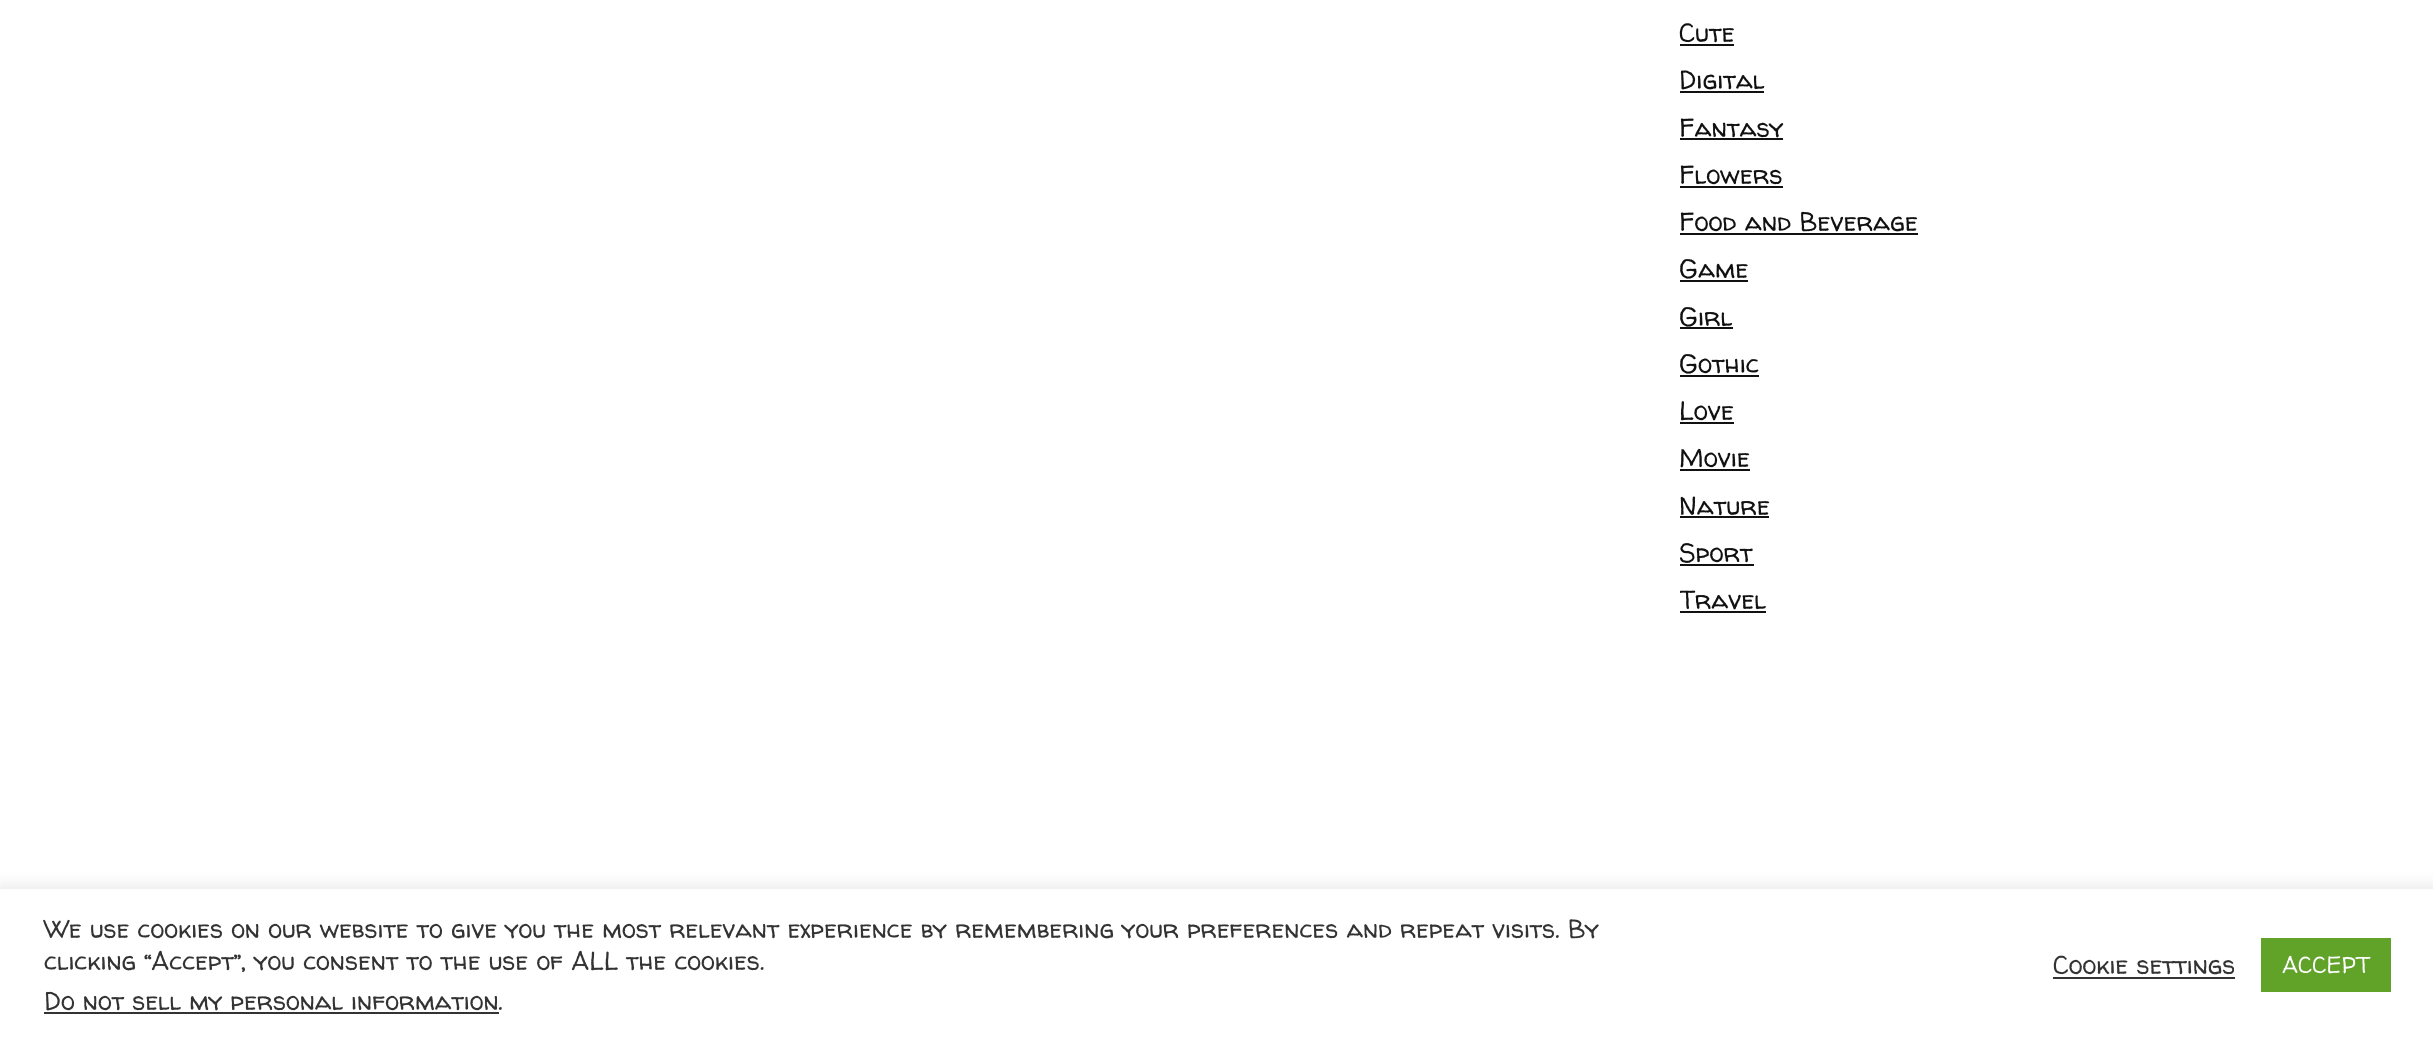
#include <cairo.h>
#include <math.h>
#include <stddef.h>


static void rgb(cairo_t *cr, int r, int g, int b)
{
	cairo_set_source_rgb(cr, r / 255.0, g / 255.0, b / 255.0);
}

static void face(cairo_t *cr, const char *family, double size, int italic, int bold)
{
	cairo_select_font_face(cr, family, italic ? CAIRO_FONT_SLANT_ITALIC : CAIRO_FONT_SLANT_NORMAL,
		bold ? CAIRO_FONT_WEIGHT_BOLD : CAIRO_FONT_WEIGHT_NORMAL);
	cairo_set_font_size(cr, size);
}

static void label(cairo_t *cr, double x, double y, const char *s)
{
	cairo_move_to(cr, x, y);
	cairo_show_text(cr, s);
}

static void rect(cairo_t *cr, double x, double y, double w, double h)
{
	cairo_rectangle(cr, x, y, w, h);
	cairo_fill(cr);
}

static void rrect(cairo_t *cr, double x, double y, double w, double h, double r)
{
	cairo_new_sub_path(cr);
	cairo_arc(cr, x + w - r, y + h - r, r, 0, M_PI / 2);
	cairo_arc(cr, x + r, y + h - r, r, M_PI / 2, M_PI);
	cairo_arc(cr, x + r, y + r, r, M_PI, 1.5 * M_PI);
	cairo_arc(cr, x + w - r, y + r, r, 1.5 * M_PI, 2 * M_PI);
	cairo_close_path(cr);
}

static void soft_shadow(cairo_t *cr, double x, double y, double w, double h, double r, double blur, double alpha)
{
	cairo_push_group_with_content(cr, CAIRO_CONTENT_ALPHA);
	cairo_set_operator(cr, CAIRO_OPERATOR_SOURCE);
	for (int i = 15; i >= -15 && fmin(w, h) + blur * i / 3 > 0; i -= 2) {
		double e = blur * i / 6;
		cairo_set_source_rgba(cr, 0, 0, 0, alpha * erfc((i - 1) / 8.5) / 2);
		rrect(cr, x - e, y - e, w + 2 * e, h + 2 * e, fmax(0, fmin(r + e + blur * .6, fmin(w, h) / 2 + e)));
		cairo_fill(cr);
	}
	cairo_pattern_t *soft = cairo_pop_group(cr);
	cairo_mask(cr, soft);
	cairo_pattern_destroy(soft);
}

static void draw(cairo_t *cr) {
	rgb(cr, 255, 255, 255);
	cairo_paint(cr);
	face(cr, "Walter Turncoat", 26.25, 0, 0);
	rgb(cr, 17, 17, 17);
	label(cr, 1679, 42, "Cute");
	rect(cr, 1680, 44, 54, 2);
	label(cr, 1679, 89, "Digital");
	rect(cr, 1680, 91, 84, 2);
	label(cr, 1679, 137, "Fantasy");
	rect(cr, 1680, 138, 103, 2);
	label(cr, 1679, 184, "Flowers");
	rect(cr, 1680, 186, 103, 2);
	label(cr, 1679, 231, "Food and Beverage");
	rect(cr, 1680, 233, 238, 2);
	label(cr, 1679, 278, "Game");
	rect(cr, 1680, 280, 68, 2);
	label(cr, 1679, 326, "Girl");
	rect(cr, 1680, 327, 53, 2);
	label(cr, 1679, 373, "Gothic");
	rect(cr, 1680, 375, 79, 2);
	label(cr, 1679, 420, "Love");
	rect(cr, 1680, 422, 54, 2);
	label(cr, 1679, 467, "Movie");
	rect(cr, 1680, 469, 70, 2);
	label(cr, 1679, 515, "Nature");
	rect(cr, 1680, 516, 89, 2);
	label(cr, 1679, 562, "Sport");
	rect(cr, 1680, 564, 74, 2);
	cairo_save(cr);
	cairo_rectangle(cr, 1680, 0, 588, 628);
	cairo_clip(cr);
	label(cr, 1679, 609, "Travel");
	cairo_restore(cr);
	rect(cr, 1680, 611, 86, 2);
	cairo_save(cr);
	cairo_rectangle(cr, 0, 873, 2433, 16);
	cairo_clip(cr);
	rgb(cr, 172, 171, 171);
	soft_shadow(cr, 0, 887, 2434, 153, 0, 9, 0.3);
	cairo_restore(cr);
	face(cr, "Walter Turncoat", 25.67, 0, 0);
	rgb(cr, 51, 51, 51);
	label(cr, 44, 938, "We use cookies on our website to give you the most relevant experience by remembering your preferences and repeat visits. By");
	label(cr, 44, 970, "clicking “Accept”, you consent to the use of ALL the cookies.");
	label(cr, 44, 1010, "Do not sell my personal information");
	rect(cr, 44, 1012, 455, 2);
	label(cr, 498, 1010, ".");
	label(cr, 2053, 974, "Cookie settings");
	rect(cr, 2053, 977, 182, 2);
	rgb(cr, 97, 162, 41);
	rect(cr, 2261, 938, 130, 54);
	face(cr, "Walter Turncoat", 23, 0, 0);
	rgb(cr, 255, 255, 255);
	label(cr, 2282, 973, "ACCEPT");
}

int main(void) {
	cairo_surface_t *surface = cairo_image_surface_create(CAIRO_FORMAT_RGB24, 2433, 1041);
	cairo_t *cr = cairo_create(surface);
	cairo_font_options_t *options = cairo_font_options_create();
	cairo_font_options_set_hint_metrics(options, CAIRO_HINT_METRICS_OFF);
	cairo_font_options_set_hint_style(options, CAIRO_HINT_STYLE_NONE);
	cairo_set_font_options(cr, options);
	cairo_set_miter_limit(cr, 4);
	draw(cr);
	cairo_surface_write_to_png(surface, "render.png");
	cairo_font_options_destroy(options);
	cairo_destroy(cr);
	cairo_surface_destroy(surface);
	return 0;
}
